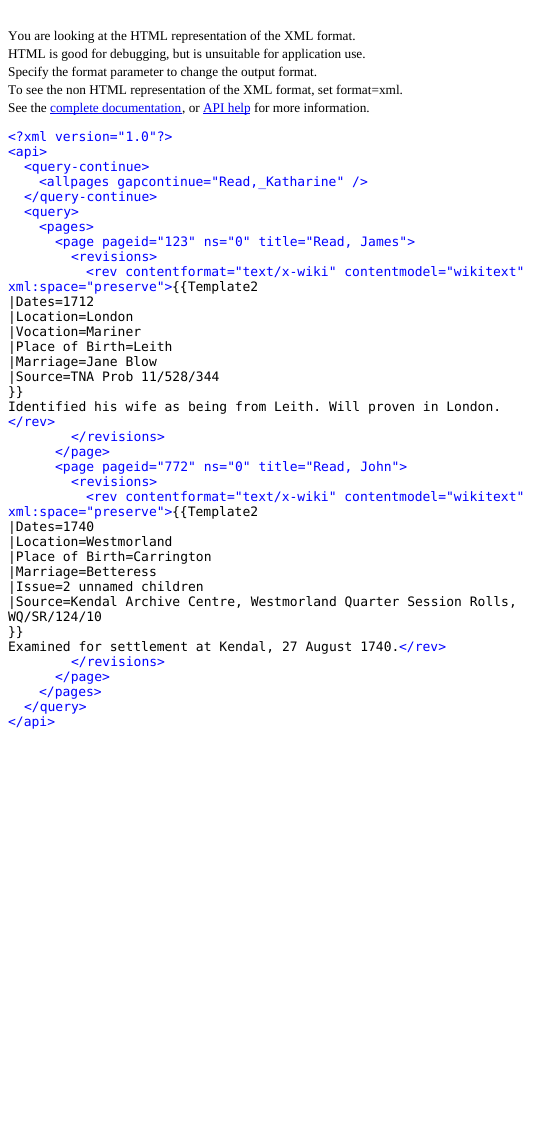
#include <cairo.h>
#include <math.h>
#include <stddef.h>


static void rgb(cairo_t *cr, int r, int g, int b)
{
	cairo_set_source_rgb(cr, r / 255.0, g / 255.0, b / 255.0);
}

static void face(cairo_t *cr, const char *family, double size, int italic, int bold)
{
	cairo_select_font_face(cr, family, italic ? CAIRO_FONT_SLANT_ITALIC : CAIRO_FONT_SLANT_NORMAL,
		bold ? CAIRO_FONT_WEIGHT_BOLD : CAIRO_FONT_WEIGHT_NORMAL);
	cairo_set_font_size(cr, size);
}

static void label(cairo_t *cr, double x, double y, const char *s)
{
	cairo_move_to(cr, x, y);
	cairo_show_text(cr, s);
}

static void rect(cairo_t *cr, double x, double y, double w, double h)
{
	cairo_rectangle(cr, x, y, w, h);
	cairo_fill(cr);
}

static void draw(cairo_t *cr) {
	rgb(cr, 255, 255, 255);
	cairo_paint(cr);
	face(cr, "Liberation Serif", 13.3, 0, 0);
	rgb(cr, 0, 0, 0);
	label(cr, 8, 40, "You are looking at the HTML representation of the XML format.");
	label(cr, 8, 58, "HTML is good for debugging, but is unsuitable for application use.");
	label(cr, 8, 76, "Specify the format parameter to change the output format.");
	label(cr, 8, 94, "To see the non HTML representation of the XML format, set format=xml.");
	label(cr, 8, 112, "See the");
	rgb(cr, 0, 0, 238);
	rect(cr, 50, 113, 132, 1);
	label(cr, 50, 112, "complete documentation");
	rgb(cr, 0, 0, 0);
	label(cr, 182, 112, ", or");
	rgb(cr, 0, 0, 238);
	rect(cr, 203, 113, 47, 1);
	label(cr, 203, 112, "API help");
	rgb(cr, 0, 0, 0);
	label(cr, 254, 112, "for more information.");
	face(cr, "DejaVu Sans Mono", 13, 0, 0);
	rgb(cr, 0, 0, 255);
	label(cr, 8, 141, "<?xml version=\"1.0\"?>");
	label(cr, 8, 156, "<api>");
	label(cr, 24, 171, "<query-continue>");
	label(cr, 39, 186, "<allpages gapcontinue=\"Read,_Katharine\" />");
	label(cr, 24, 201, "</query-continue>");
	label(cr, 24, 216, "<query>");
	label(cr, 39, 231, "<pages>");
	label(cr, 55, 246, "<page pageid=\"123\" ns=\"0\" title=\"Read, James\">");
	label(cr, 71, 261, "<revisions>");
	label(cr, 86, 276, "<rev contentformat=\"text/x-wiki\" contentmodel=\"wikitext\"");
	label(cr, 8, 291, "xml:space=\"preserve\">");
	rgb(cr, 0, 0, 0);
	label(cr, 172, 291, "{{Template2");
	label(cr, 8, 306, "|Dates=1712");
	label(cr, 8, 321, "|Location=London");
	label(cr, 8, 336, "|Vocation=Mariner");
	label(cr, 8, 351, "|Place of Birth=Leith");
	label(cr, 8, 366, "|Marriage=Jane Blow");
	label(cr, 8, 381, "|Source=TNA Prob 11/528/344");
	label(cr, 8, 396, "}}");
	label(cr, 8, 411, "Identified his wife as being from Leith. Will proven in London.");
	rgb(cr, 0, 0, 255);
	label(cr, 8, 426, "</rev>");
	label(cr, 71, 441, "</revisions>");
	label(cr, 55, 456, "</page>");
	label(cr, 55, 471, "<page pageid=\"772\" ns=\"0\" title=\"Read, John\">");
	label(cr, 71, 486, "<revisions>");
	label(cr, 86, 501, "<rev contentformat=\"text/x-wiki\" contentmodel=\"wikitext\"");
	label(cr, 8, 516, "xml:space=\"preserve\">");
	rgb(cr, 0, 0, 0);
	label(cr, 172, 516, "{{Template2");
	label(cr, 8, 531, "|Dates=1740");
	label(cr, 8, 546, "|Location=Westmorland");
	label(cr, 8, 561, "|Place of Birth=Carrington");
	label(cr, 8, 576, "|Marriage=Betteress");
	label(cr, 8, 591, "|Issue=2 unnamed children");
	label(cr, 8, 606, "|Source=Kendal Archive Centre, Westmorland Quarter Session Rolls,");
	label(cr, 8, 621, "WQ/SR/124/10");
	label(cr, 8, 636, "}}");
	label(cr, 8, 651, "Examined for settlement at Kendal, 27 August 1740.");
	rgb(cr, 0, 0, 255);
	label(cr, 399, 651, "</rev>");
	label(cr, 71, 666, "</revisions>");
	label(cr, 55, 681, "</page>");
	label(cr, 39, 696, "</pages>");
	label(cr, 24, 711, "</query>");
	label(cr, 8, 726, "</api>");
}

int main(void) {
	cairo_surface_t *surface = cairo_image_surface_create(CAIRO_FORMAT_RGB24, 554, 1124);
	cairo_t *cr = cairo_create(surface);
	cairo_font_options_t *options = cairo_font_options_create();
	cairo_font_options_set_hint_metrics(options, CAIRO_HINT_METRICS_OFF);
	cairo_font_options_set_hint_style(options, CAIRO_HINT_STYLE_NONE);
	cairo_set_font_options(cr, options);
	cairo_set_miter_limit(cr, 4);
	draw(cr);
	cairo_surface_write_to_png(surface, "render.png");
	cairo_font_options_destroy(options);
	cairo_destroy(cr);
	cairo_surface_destroy(surface);
	return 0;
}
